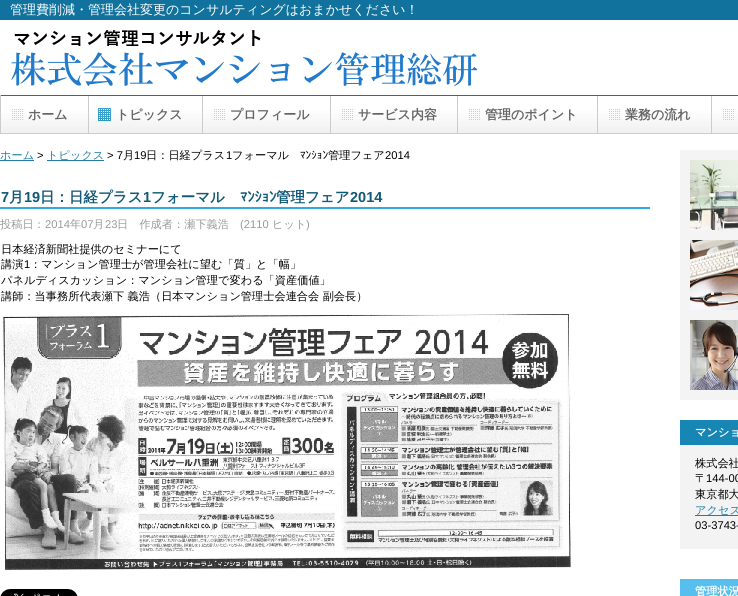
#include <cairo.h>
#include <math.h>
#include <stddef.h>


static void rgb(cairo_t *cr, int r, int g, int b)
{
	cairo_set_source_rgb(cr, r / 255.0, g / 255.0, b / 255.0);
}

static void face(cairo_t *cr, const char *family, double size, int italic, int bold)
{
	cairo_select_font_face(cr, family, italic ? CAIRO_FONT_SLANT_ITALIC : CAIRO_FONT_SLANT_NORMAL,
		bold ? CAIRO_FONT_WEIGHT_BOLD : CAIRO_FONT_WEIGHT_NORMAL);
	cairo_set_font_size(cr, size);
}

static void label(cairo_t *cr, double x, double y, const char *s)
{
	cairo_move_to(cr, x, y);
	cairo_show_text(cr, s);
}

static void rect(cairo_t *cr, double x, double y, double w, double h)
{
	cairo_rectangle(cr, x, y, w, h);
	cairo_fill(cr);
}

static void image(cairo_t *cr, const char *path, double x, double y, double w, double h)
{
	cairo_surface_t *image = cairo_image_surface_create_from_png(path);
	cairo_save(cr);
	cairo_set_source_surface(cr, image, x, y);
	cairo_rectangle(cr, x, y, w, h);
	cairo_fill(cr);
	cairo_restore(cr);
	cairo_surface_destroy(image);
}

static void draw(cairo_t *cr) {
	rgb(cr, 255, 255, 255);
	cairo_paint(cr);
	image(cr, "image0.png", 0, 0, 738, 134);
	face(cr, "WenQuanYi Zen Hei Medium", 13, 0, 0);
	rgb(cr, 255, 255, 255);
	label(cr, 10, 14, "管理費削減・管理会社変更のコンサルティングはおまかせください！");
	image(cr, "image1.png", 11, 30, 467, 57);
	rgb(cr, 204, 204, 204);
	rect(cr, 0, 95, 1, 38);
	rect(cr, 88, 96, 1, 37);
	image(cr, "image2.png", 12, 109, 12, 11);
	face(cr, "WenQuanYi Zen Hei", 13, 0, 1);
	rgb(cr, 102, 102, 102);
	label(cr, 28, 119, "ホーム");
	rgb(cr, 204, 204, 204);
	rect(cr, 202, 96, 1, 37);
	image(cr, "image3.png", 98, 108, 13, 13);
	rgb(cr, 102, 102, 102);
	label(cr, 116, 119, "トピックス");
	rgb(cr, 204, 204, 204);
	rect(cr, 330, 96, 1, 37);
	image(cr, "image4.png", 214, 109, 12, 11);
	rgb(cr, 102, 102, 102);
	label(cr, 230, 119, "プロフィール");
	rgb(cr, 204, 204, 204);
	rect(cr, 457, 96, 1, 37);
	image(cr, "image5.png", 342, 109, 11, 11);
	rgb(cr, 102, 102, 102);
	label(cr, 358, 119, "サービス内容");
	rgb(cr, 204, 204, 204);
	rect(cr, 597, 96, 1, 37);
	image(cr, "image6.png", 469, 109, 11, 11);
	rgb(cr, 102, 102, 102);
	label(cr, 485, 119, "管理のポイント");
	rgb(cr, 204, 204, 204);
	rect(cr, 711, 96, 1, 37);
	image(cr, "image7.png", 609, 109, 12, 11);
	rgb(cr, 102, 102, 102);
	label(cr, 625, 119, "業務の流れ");
	image(cr, "image5.png", 723, 109, 11, 11);
	rgb(cr, 31, 126, 167);
	rect(cr, 0, 160, 34, 1);
	face(cr, "WenQuanYi Zen Hei Medium", 11.2, 0, 0);
	label(cr, 0, 159, "ホーム");
	face(cr, "Liberation Sans", 11.2, 0, 0);
	rgb(cr, 0, 0, 0);
	label(cr, 37, 159, ">");
	rgb(cr, 31, 126, 167);
	rect(cr, 47, 160, 57, 1);
	face(cr, "WenQuanYi Zen Hei Medium", 11.2, 0, 0);
	label(cr, 47, 159, "トピックス");
	face(cr, "Liberation Sans", 11.2, 0, 0);
	rgb(cr, 0, 0, 0);
	label(cr, 107, 159, "> 7");
	face(cr, "WenQuanYi Zen Hei Medium", 11.2, 0, 0);
	label(cr, 123, 159, "月");
	face(cr, "Liberation Sans", 11.2, 0, 0);
	label(cr, 134, 159, "19");
	face(cr, "WenQuanYi Zen Hei Medium", 11.2, 0, 0);
	label(cr, 146, 159, "日：日経プラス");
	face(cr, "Liberation Sans", 11.2, 0, 0);
	label(cr, 226, 159, "1");
	face(cr, "WenQuanYi Zen Hei Medium", 11.2, 0, 0);
	label(cr, 232, 159, "フォーマル");
	face(cr, "IPAPGothic", 11.2, 0, 0);
	label(cr, 300, 159, "ﾏﾝｼｮﾝ");
	face(cr, "WenQuanYi Zen Hei Medium", 11.2, 0, 0);
	label(cr, 328, 159, "管理フェア");
	face(cr, "Liberation Sans", 11.2, 0, 0);
	label(cr, 385, 159, "2014");
	rgb(cr, 44, 171, 226);
	rect(cr, 0, 207, 650, 2);
	face(cr, "Liberation Sans", 14.5, 0, 1);
	rgb(cr, 16, 89, 120);
	label(cr, 1, 202, "7");
	face(cr, "WenQuanYi Zen Hei", 14.5, 0, 1);
	label(cr, 9, 202, "月");
	face(cr, "Liberation Sans", 14.5, 0, 1);
	label(cr, 24, 202, "19");
	face(cr, "WenQuanYi Zen Hei", 14.5, 0, 1);
	label(cr, 40, 202, "日：日経プラス");
	face(cr, "Liberation Sans", 14.5, 0, 1);
	label(cr, 143, 202, "1");
	face(cr, "WenQuanYi Zen Hei", 14.5, 0, 1);
	label(cr, 151, 202, "フォーマル");
	face(cr, "IPAPGothic", 14.5, 0, 1);
	label(cr, 240, 202, "ﾏﾝｼｮﾝ");
	face(cr, "WenQuanYi Zen Hei", 14.5, 0, 1);
	label(cr, 276, 202, "管理フェア");
	face(cr, "Liberation Sans", 14.5, 0, 1);
	label(cr, 350, 202, "2014");
	face(cr, "WenQuanYi Zen Hei Medium", 11.2, 0, 0);
	rgb(cr, 153, 153, 153);
	label(cr, 0, 228, "投稿日：");
	face(cr, "Liberation Sans", 11.2, 0, 0);
	label(cr, 45, 228, "2014");
	face(cr, "WenQuanYi Zen Hei Medium", 11.2, 0, 0);
	label(cr, 70, 228, "年");
	face(cr, "Liberation Sans", 11.2, 0, 0);
	label(cr, 81, 228, "07");
	face(cr, "WenQuanYi Zen Hei Medium", 11.2, 0, 0);
	label(cr, 93, 228, "月");
	face(cr, "Liberation Sans", 11.2, 0, 0);
	label(cr, 105, 228, "23");
	face(cr, "WenQuanYi Zen Hei Medium", 11.2, 0, 0);
	label(cr, 117, 228, "日　作成者：瀬下義浩");
	face(cr, "Liberation Sans", 11.2, 0, 0);
	label(cr, 240, 228, "(2110");
	face(cr, "WenQuanYi Zen Hei Medium", 11.2, 0, 0);
	label(cr, 272, 228, "ヒット");
	face(cr, "Liberation Sans", 11.2, 0, 0);
	label(cr, 306, 228, ")");
	face(cr, "WenQuanYi Zen Hei Medium", 11.2, 0, 0);
	rgb(cr, 0, 0, 0);
	label(cr, 1, 253, "日本経済新聞社提供のセミナーにて");
	label(cr, 1, 268, "講演");
	face(cr, "Liberation Sans", 11.2, 0, 0);
	label(cr, 24, 268, "1");
	face(cr, "WenQuanYi Zen Hei Medium", 11.2, 0, 0);
	label(cr, 30, 268, "：マンション管理士が管理会社に望む「質」と「幅」");
	label(cr, 1, 284, "パネルディスカッション：マンション管理で変わる「資産価値」");
	label(cr, 1, 300, "講師：当事務所代表瀬下 義浩（日本マンション管理士会連合会 副会長）");
	image(cr, "image8.png", 2, 314, 569, 256);
	image(cr, "image9.png", 0, 589, 78, 7);
	rgb(cr, 244, 244, 244);
	rect(cr, 680, 150, 58, 250);
	image(cr, "image10.png", 690, 160, 48, 70);
	image(cr, "image11.png", 690, 240, 48, 70);
	image(cr, "image12.png", 690, 320, 48, 70);
	rgb(cr, 24, 134, 181);
	rect(cr, 680, 420, 58, 25);
	face(cr, "WenQuanYi Zen Hei", 11.2, 0, 1);
	rgb(cr, 255, 255, 255);
	label(cr, 695, 436, "マンショ");
	rgb(cr, 243, 243, 243);
	rect(cr, 680, 445, 58, 104);
	face(cr, "WenQuanYi Zen Hei Medium", 11.2, 0, 0);
	rgb(cr, 0, 0, 0);
	label(cr, 695, 467, "株式会社");
	label(cr, 695, 482, "〒");
	face(cr, "Liberation Sans", 11.2, 0, 0);
	label(cr, 706, 482, "144-00");
	face(cr, "WenQuanYi Zen Hei Medium", 11.2, 0, 0);
	label(cr, 695, 498, "東京都大");
	rgb(cr, 31, 126, 167);
	rect(cr, 695, 515, 43, 1);
	label(cr, 695, 514, "アクセス");
	face(cr, "Liberation Sans", 11.2, 0, 0);
	rgb(cr, 0, 0, 0);
	label(cr, 695, 529, "03-3743-");
	rgb(cr, 86, 191, 237);
	rect(cr, 680, 579, 58, 17);
	face(cr, "WenQuanYi Zen Hei", 11.2, 0, 1);
	rgb(cr, 255, 255, 255);
	label(cr, 695, 595, "管理状況");
}

int main(void) {
	cairo_surface_t *surface = cairo_image_surface_create(CAIRO_FORMAT_RGB24, 738, 596);
	cairo_t *cr = cairo_create(surface);
	cairo_font_options_t *options = cairo_font_options_create();
	cairo_font_options_set_hint_metrics(options, CAIRO_HINT_METRICS_OFF);
	cairo_font_options_set_hint_style(options, CAIRO_HINT_STYLE_NONE);
	cairo_set_font_options(cr, options);
	cairo_set_miter_limit(cr, 4);
	draw(cr);
	cairo_surface_write_to_png(surface, "render.png");
	cairo_font_options_destroy(options);
	cairo_destroy(cr);
	cairo_surface_destroy(surface);
	return 0;
}
